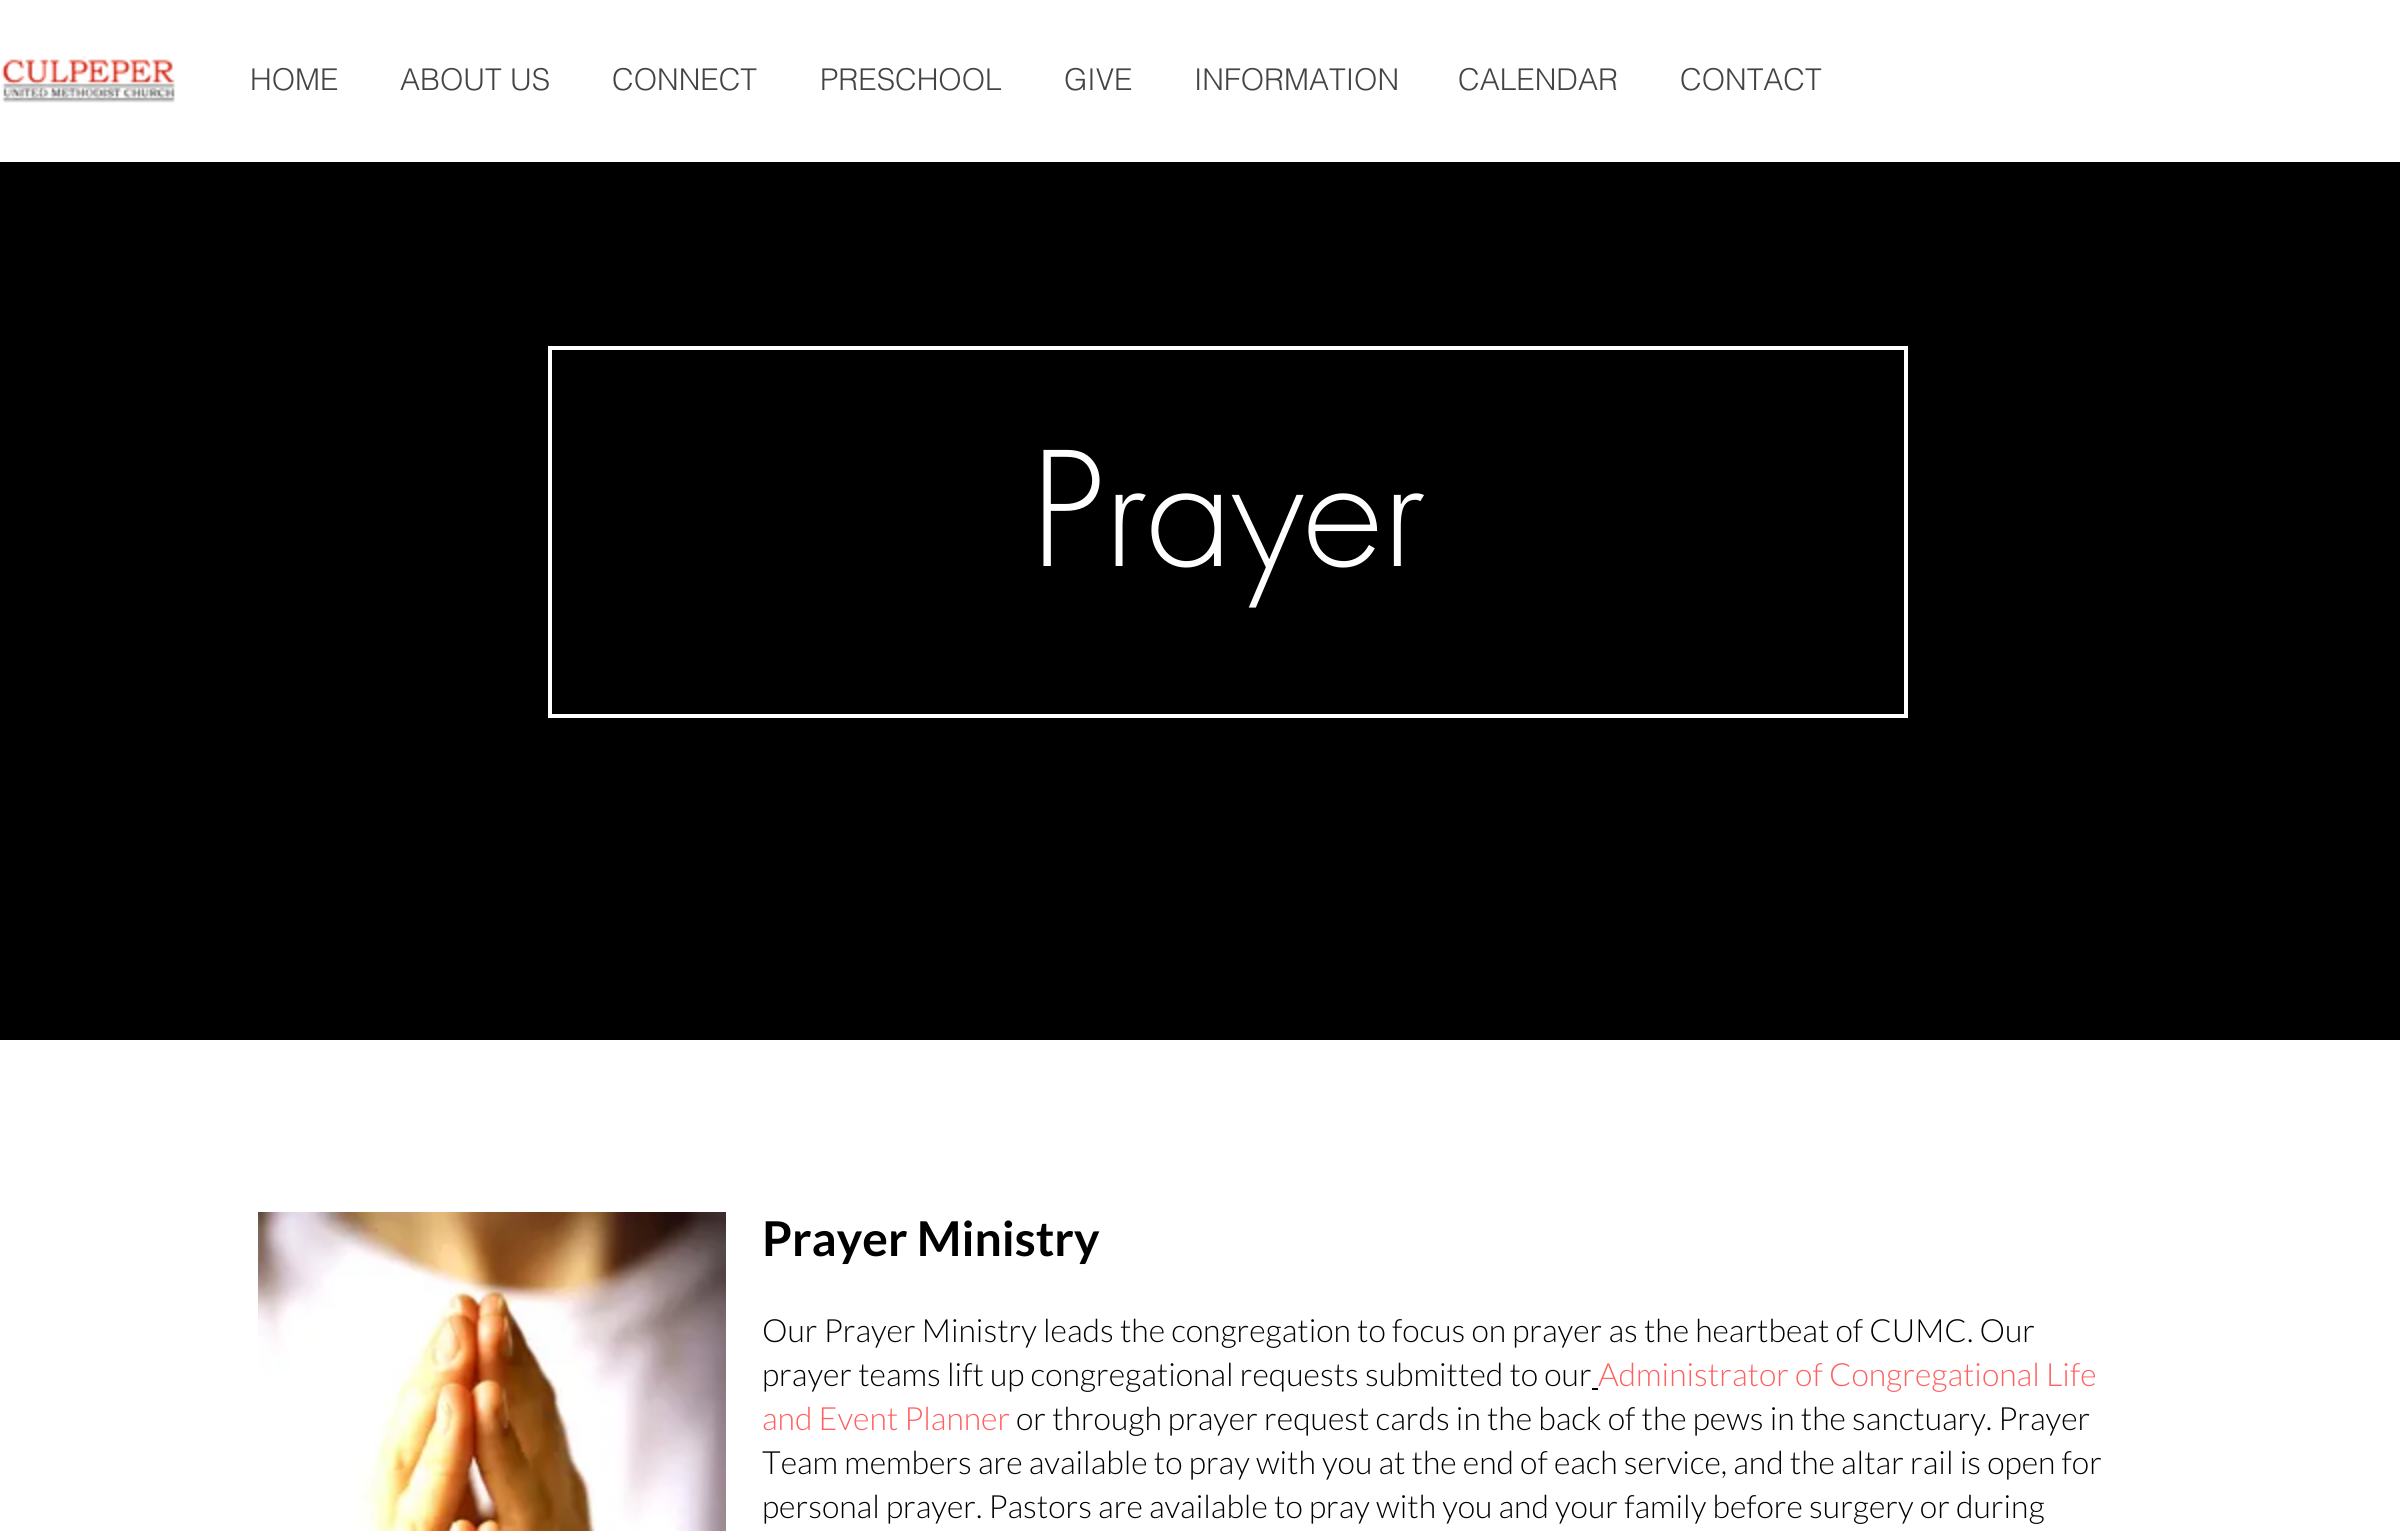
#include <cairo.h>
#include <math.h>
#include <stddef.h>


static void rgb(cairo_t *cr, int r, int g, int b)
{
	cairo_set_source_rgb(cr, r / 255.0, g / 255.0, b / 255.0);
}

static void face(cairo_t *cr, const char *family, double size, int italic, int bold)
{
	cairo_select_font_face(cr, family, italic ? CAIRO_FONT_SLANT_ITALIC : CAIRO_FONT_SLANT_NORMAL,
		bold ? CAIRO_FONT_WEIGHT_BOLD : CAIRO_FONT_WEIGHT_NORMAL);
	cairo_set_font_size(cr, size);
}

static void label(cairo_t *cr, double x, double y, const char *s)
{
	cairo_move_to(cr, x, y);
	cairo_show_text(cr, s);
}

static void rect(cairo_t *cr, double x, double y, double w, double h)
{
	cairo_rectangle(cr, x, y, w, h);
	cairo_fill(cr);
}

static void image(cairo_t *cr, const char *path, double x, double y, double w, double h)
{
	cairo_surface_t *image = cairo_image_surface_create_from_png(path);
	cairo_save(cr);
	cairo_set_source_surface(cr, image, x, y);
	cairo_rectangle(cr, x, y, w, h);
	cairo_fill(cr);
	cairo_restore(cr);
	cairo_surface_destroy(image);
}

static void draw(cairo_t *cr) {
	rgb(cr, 255, 255, 255);
	cairo_paint(cr);
	image(cr, "image0.png", 1, 55, 175, 48);
	face(cr, "helvetica Light", 30, 0, 0);
	rgb(cr, 68, 68, 68);
	label(cr, 250, 90, "HOME");
	label(cr, 400, 90, "ABOUT US");
	label(cr, 612, 90, "CONNECT");
	label(cr, 820, 90, "PRESCHOOL");
	label(cr, 1064, 90, "GIVE");
	label(cr, 1194, 90, "INFORMATION");
	label(cr, 1458, 90, "CALENDAR");
	label(cr, 1680, 90, "CONTACT");
	rgb(cr, 0, 0, 0);
	rect(cr, 0, 162, 2400, 878);
	cairo_rectangle(cr, 550, 348, 1356, 368);
	rgb(cr, 255, 255, 255);
	cairo_set_line_width(cr, 4);
	cairo_stroke(cr);
	face(cr, "futura Light", 154, 0, 0);
	label(cr, 1031, 566, "Prayer");
	image(cr, "image1.png", 258, 1212, 468, 319);
	face(cr, "Lato", 48, 0, 1);
	rgb(cr, 0, 0, 0);
	label(cr, 762, 1256, "Prayer Ministry");
	face(cr, "Lato Light", 32, 0, 0);
	label(cr, 762, 1342, "Our Prayer Ministry leads the congregation to focus on prayer as the heartbeat of CUMC. Our");
	label(cr, 762, 1386, "prayer teams lift up congregational requests submitted to our");
	rgb(cr, 255, 97, 97);
	label(cr, 1598, 1386, "Administrator of Congregational Life");
	rgb(cr, 0, 0, 0);
	rect(cr, 1592, 1388, 6, 2);
	rgb(cr, 255, 97, 97);
	label(cr, 762, 1430, "and Event Planner");
	rgb(cr, 0, 0, 0);
	label(cr, 1016, 1430, "or through prayer request cards in the back of the pews in the sanctuary. Prayer");
	label(cr, 762, 1474, "Team members are available to pray with you at the end of each service, and the altar rail is open for");
	label(cr, 762, 1518, "personal prayer. Pastors are available to pray with you and your family before surgery or during");
}

int main(void) {
	cairo_surface_t *surface = cairo_image_surface_create(CAIRO_FORMAT_RGB24, 2400, 1531);
	cairo_t *cr = cairo_create(surface);
	cairo_font_options_t *options = cairo_font_options_create();
	cairo_font_options_set_hint_metrics(options, CAIRO_HINT_METRICS_OFF);
	cairo_font_options_set_hint_style(options, CAIRO_HINT_STYLE_NONE);
	cairo_set_font_options(cr, options);
	cairo_set_miter_limit(cr, 4);
	draw(cr);
	cairo_surface_write_to_png(surface, "render.png");
	cairo_font_options_destroy(options);
	cairo_destroy(cr);
	cairo_surface_destroy(surface);
	return 0;
}
